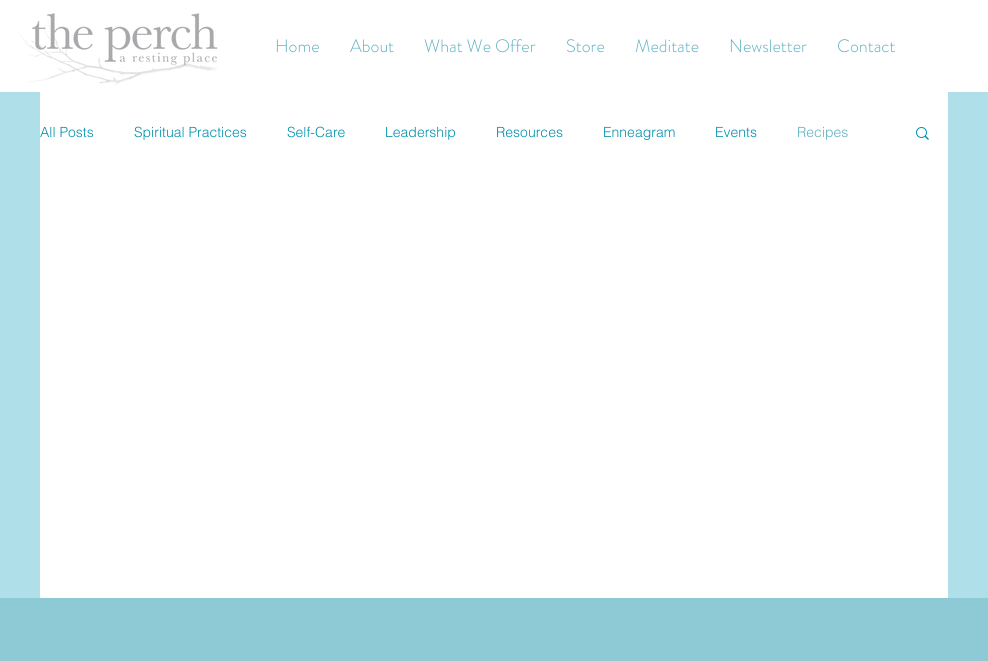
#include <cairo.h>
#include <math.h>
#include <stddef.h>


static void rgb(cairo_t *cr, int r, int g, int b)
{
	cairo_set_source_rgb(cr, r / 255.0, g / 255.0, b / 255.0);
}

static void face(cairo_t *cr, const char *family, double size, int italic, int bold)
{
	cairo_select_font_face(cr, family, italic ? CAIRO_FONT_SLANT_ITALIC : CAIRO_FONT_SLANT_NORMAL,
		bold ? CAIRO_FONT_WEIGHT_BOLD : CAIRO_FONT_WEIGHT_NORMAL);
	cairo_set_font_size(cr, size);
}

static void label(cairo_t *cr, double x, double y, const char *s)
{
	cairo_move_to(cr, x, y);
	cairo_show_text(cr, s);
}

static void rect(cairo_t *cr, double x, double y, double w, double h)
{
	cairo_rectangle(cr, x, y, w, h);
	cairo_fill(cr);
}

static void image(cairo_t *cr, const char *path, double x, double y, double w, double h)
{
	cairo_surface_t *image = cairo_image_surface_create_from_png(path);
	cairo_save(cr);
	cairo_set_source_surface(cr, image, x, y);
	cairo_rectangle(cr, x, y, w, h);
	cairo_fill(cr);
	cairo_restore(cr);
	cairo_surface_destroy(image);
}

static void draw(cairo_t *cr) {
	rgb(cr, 175, 224, 234);
	cairo_paint(cr);
	rgb(cr, 255, 255, 255);
	rect(cr, 0, 0, 988, 92);
	image(cr, "image0.png", 19, 13, 199, 72);
	face(cr, "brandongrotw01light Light", 18, 0, 0);
	rgb(cr, 96, 177, 193);
	label(cr, 275, 52, "Home");
	label(cr, 350, 52, "About");
	label(cr, 424, 52, "What We Offer");
	label(cr, 566, 52, "Store");
	label(cr, 635, 52, "Meditate");
	label(cr, 729, 52, "Newsletter");
	label(cr, 837, 52, "Contact");
	rgb(cr, 255, 255, 255);
	rect(cr, 40, 92, 908, 506);
	face(cr, "helvetica Light", 14, 0, 0);
	rgb(cr, 0, 144, 173);
	label(cr, 40, 137, "All Posts");
	label(cr, 134, 137, "Spiritual Practices");
	label(cr, 287, 137, "Self-Care");
	label(cr, 385, 137, "Leadership");
	label(cr, 496, 137, "Resources");
	label(cr, 603, 137, "Enneagram");
	label(cr, 715, 137, "Events");
	rgb(cr, 96, 177, 193);
	label(cr, 797, 137, "Recipes");
	image(cr, "image1.png", 916, 127, 13, 13);
	rgb(cr, 142, 202, 214);
	rect(cr, 0, 598, 988, 63);
}

int main(void) {
	cairo_surface_t *surface = cairo_image_surface_create(CAIRO_FORMAT_RGB24, 988, 661);
	cairo_t *cr = cairo_create(surface);
	cairo_font_options_t *options = cairo_font_options_create();
	cairo_font_options_set_hint_metrics(options, CAIRO_HINT_METRICS_OFF);
	cairo_font_options_set_hint_style(options, CAIRO_HINT_STYLE_NONE);
	cairo_set_font_options(cr, options);
	cairo_set_miter_limit(cr, 4);
	draw(cr);
	cairo_surface_write_to_png(surface, "render.png");
	cairo_font_options_destroy(options);
	cairo_destroy(cr);
	cairo_surface_destroy(surface);
	return 0;
}
